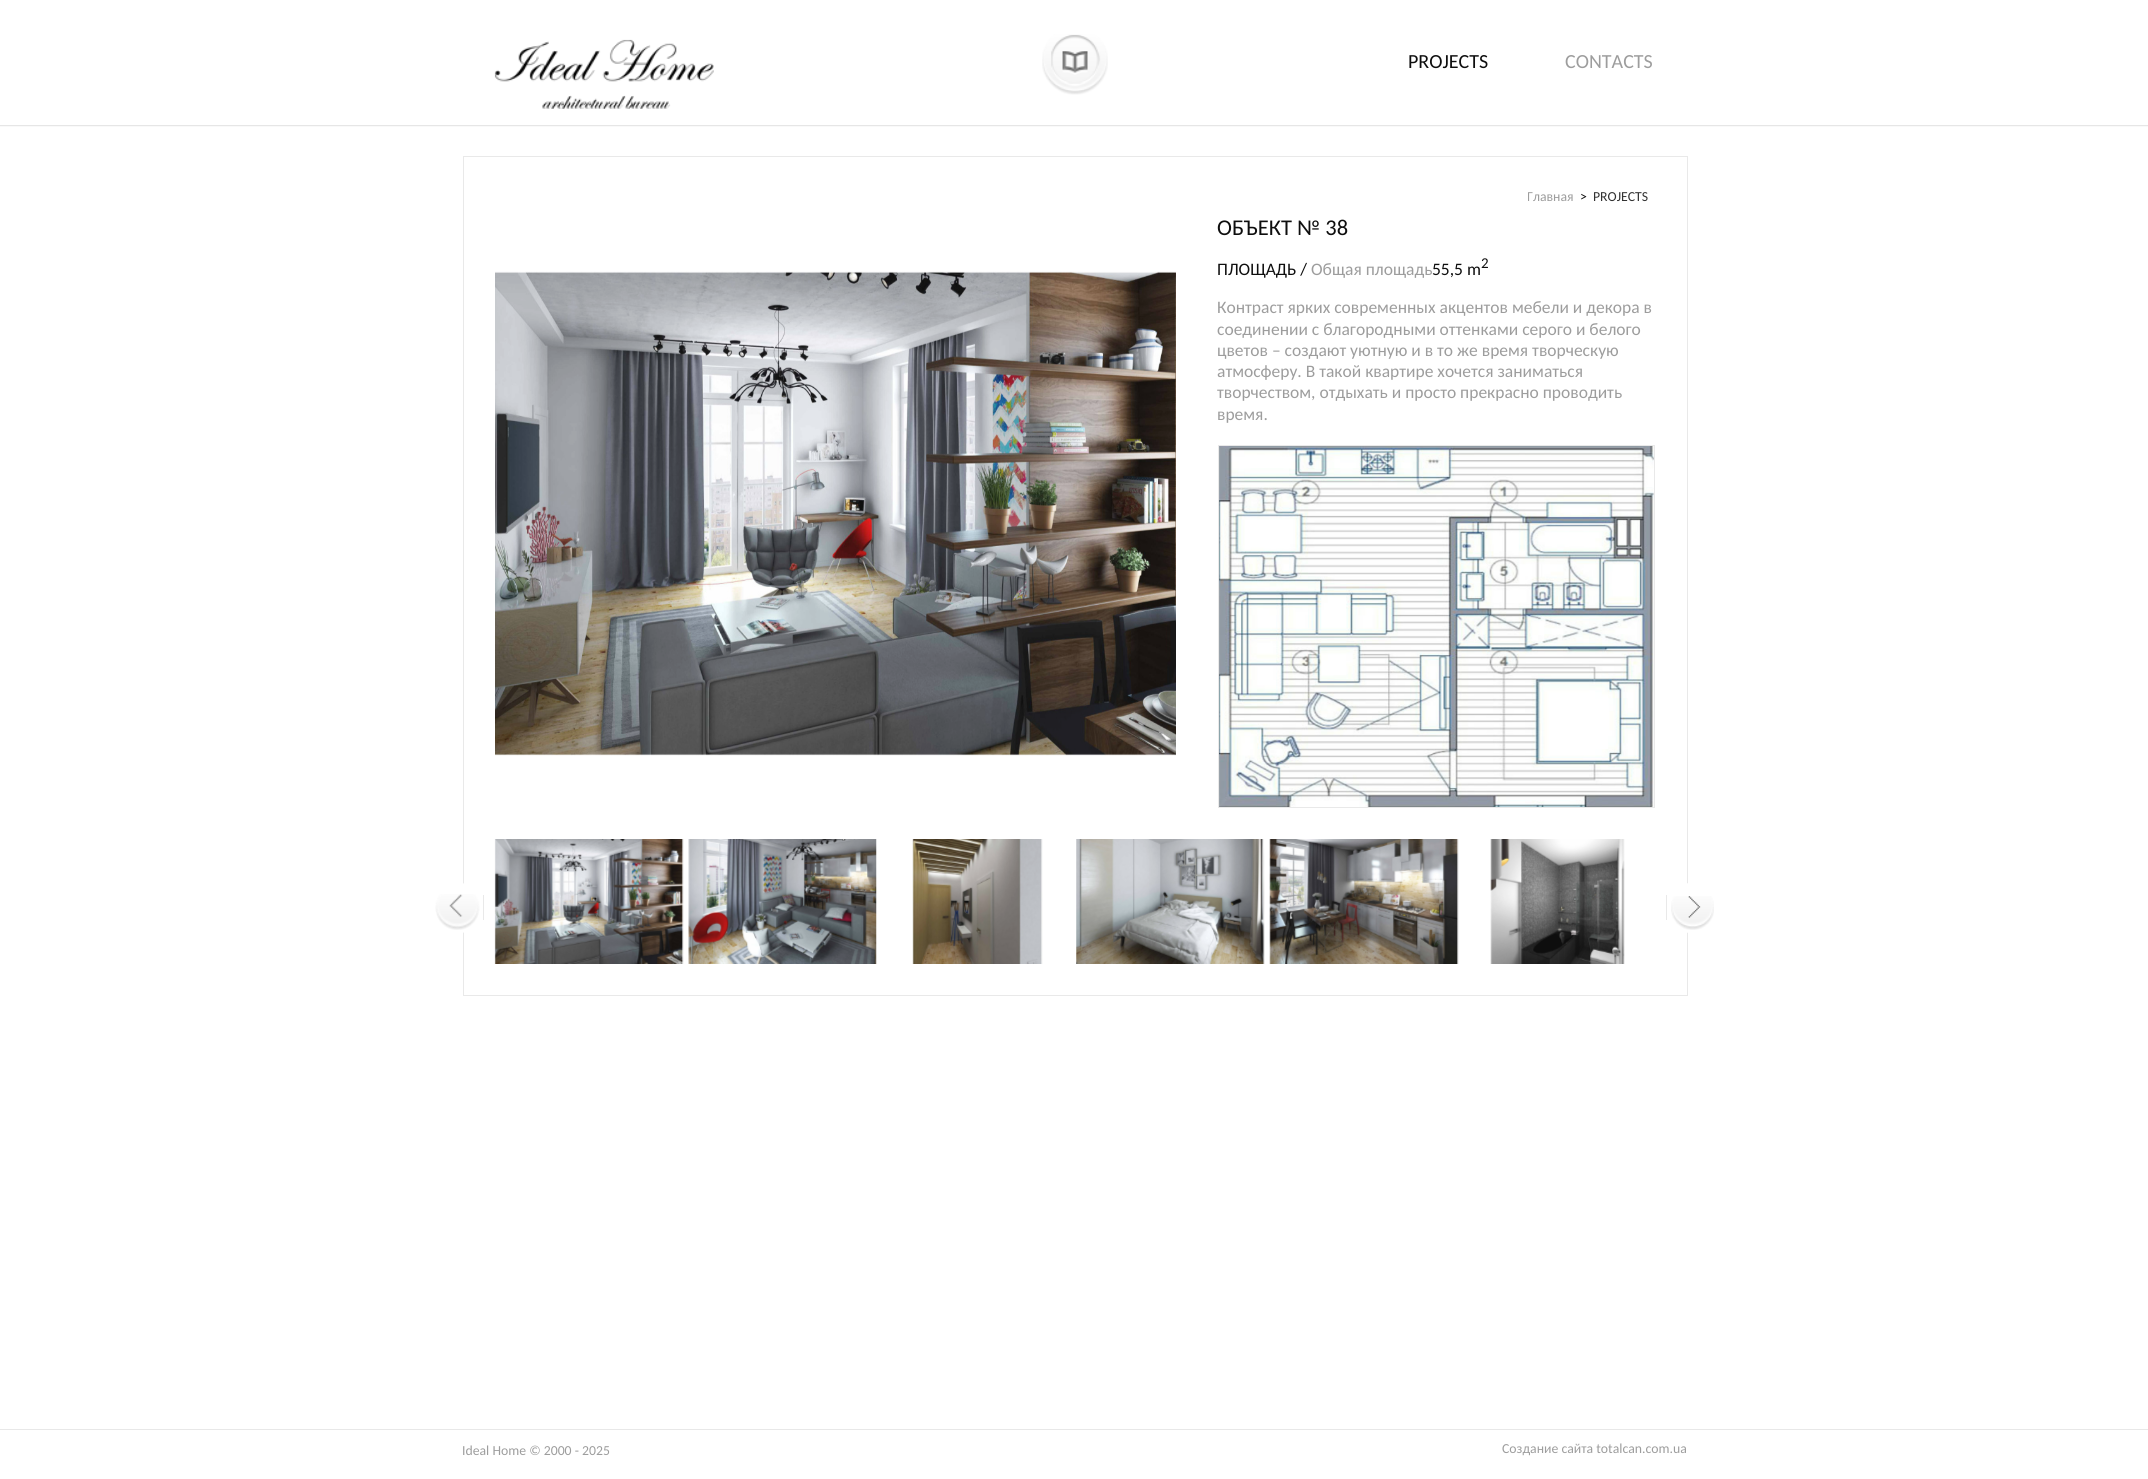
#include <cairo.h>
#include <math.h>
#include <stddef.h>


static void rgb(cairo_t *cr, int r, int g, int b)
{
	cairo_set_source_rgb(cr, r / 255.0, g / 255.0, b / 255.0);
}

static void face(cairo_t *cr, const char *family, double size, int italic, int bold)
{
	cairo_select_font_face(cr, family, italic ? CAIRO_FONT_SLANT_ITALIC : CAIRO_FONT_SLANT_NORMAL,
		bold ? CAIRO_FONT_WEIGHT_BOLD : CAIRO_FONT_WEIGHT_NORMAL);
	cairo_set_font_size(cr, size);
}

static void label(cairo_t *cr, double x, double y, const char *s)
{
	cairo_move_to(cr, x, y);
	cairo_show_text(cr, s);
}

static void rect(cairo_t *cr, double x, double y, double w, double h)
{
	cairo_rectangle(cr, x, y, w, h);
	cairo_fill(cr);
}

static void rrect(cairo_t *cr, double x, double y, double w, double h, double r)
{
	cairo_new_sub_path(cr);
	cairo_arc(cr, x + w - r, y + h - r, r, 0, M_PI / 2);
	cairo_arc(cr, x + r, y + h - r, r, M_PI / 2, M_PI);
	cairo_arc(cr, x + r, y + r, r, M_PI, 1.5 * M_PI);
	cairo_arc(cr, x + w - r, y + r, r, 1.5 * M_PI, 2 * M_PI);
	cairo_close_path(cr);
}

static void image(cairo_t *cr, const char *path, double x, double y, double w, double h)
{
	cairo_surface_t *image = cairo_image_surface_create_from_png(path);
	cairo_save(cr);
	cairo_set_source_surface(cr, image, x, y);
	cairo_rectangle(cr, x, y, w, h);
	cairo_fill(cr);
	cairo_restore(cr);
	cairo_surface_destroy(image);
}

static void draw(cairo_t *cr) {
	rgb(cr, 255, 255, 255);
	cairo_paint(cr);
	image(cr, "image0.png", 0, 125, 2148, 2);
	image(cr, "image1.png", 494, 39, 220, 70);
	image(cr, "image2.png", 1042, 34, 66, 61);
	face(cr, "Carlito", 20, 0, 0);
	rgb(cr, 14, 14, 14);
	label(cr, 1408, 68, "PROJECTS");
	rgb(cr, 157, 157, 157);
	label(cr, 1565, 68, "CONTACTS");
	cairo_rectangle(cr, 463.5, 156.5, 1224, 839);
	rgb(cr, 233, 233, 233);
	cairo_set_line_width(cr, 1);
	cairo_stroke(cr);
	cairo_save(cr);
	cairo_rectangle(cr, 1528, 189, 127, 16);
	cairo_clip(cr);
	face(cr, "Carlito", 13.75, 0, 0);
	rgb(cr, 157, 157, 157);
	label(cr, 1527, 201, "Главная");
	cairo_restore(cr);
	face(cr, "Carlito", 13.75, 0, 0);
	rgb(cr, 14, 14, 14);
	label(cr, 1580, 201, ">");
	rgb(cr, 49, 49, 49);
	label(cr, 1593, 201, "PROJECTS");
	image(cr, "image3.png", 495, 271, 681, 485);
	face(cr, "Carlito", 22.5, 0, 0);
	rgb(cr, 14, 14, 14);
	label(cr, 1217, 235, "ОБЪЕКТ № 38");
	face(cr, "Carlito", 17.5, 0, 0);
	label(cr, 1217, 275, "ПЛОЩАДЬ /");
	rgb(cr, 157, 157, 157);
	label(cr, 1311, 275, "Общая площадь");
	rgb(cr, 14, 14, 14);
	label(cr, 1432, 275, "55,5 m");
	face(cr, "Carlito", 15, 0, 0);
	label(cr, 1481, 268, "2");
	face(cr, "Carlito", 17.5, 0, 0);
	rgb(cr, 157, 157, 157);
	label(cr, 1217, 313, "Контраст ярких современных акцентов мебели и декора в");
	label(cr, 1217, 335, "соединении с благородными оттенками серого и белого");
	label(cr, 1217, 356, "цветов – создают уютную и в то же время творческую");
	label(cr, 1217, 377, "атмосферу. В такой квартире хочется заниматься");
	label(cr, 1217, 398, "творчеством, отдыхать и просто прекрасно проводить");
	label(cr, 1217, 420, "время.");
	image(cr, "image4.png", 1219, 446, 435, 361);
	cairo_rectangle(cr, 1218.5, 445.5, 436, 362);
	rgb(cr, 233, 233, 233);
	cairo_stroke(cr);
	image(cr, "image5.png", 494, 839, 190, 125);
	image(cr, "image6.png", 688, 839, 189, 125);
	image(cr, "image7.png", 912, 839, 131, 125);
	image(cr, "image8.png", 1076, 839, 189, 125);
	image(cr, "image9.png", 1269, 839, 190, 125);
	image(cr, "image10.png", 1490, 839, 135, 125);
	rgb(cr, 255, 255, 255);
	rrect(cr, 433, 883, 51, 50, 25);
	cairo_fill(cr);
	image(cr, "image11.png", 435, 894, 45, 36);
	rgb(cr, 233, 233, 233);
	rect(cr, 483, 895, 1, 25);
	rgb(cr, 255, 255, 255);
	rrect(cr, 1666, 883, 52, 50, 25);
	cairo_fill(cr);
	image(cr, "image12.png", 1671, 896, 43, 34);
	rgb(cr, 233, 233, 233);
	rect(cr, 1666, 895, 1, 25);
	rgb(cr, 232, 232, 232);
	rect(cr, 0, 1429, 2148, 1);
	face(cr, "Carlito", 13.75, 0, 0);
	rgb(cr, 157, 157, 157);
	label(cr, 462, 1455, "Ideal Home © 2000 - 2025");
	label(cr, 1502, 1453, "Создание сайта totalcan.com.ua");
}

int main(void) {
	cairo_surface_t *surface = cairo_image_surface_create(CAIRO_FORMAT_RGB24, 2148, 1479);
	cairo_t *cr = cairo_create(surface);
	cairo_font_options_t *options = cairo_font_options_create();
	cairo_font_options_set_hint_metrics(options, CAIRO_HINT_METRICS_OFF);
	cairo_font_options_set_hint_style(options, CAIRO_HINT_STYLE_NONE);
	cairo_set_font_options(cr, options);
	cairo_set_miter_limit(cr, 4);
	draw(cr);
	cairo_surface_write_to_png(surface, "render.png");
	cairo_font_options_destroy(options);
	cairo_destroy(cr);
	cairo_surface_destroy(surface);
	return 0;
}
